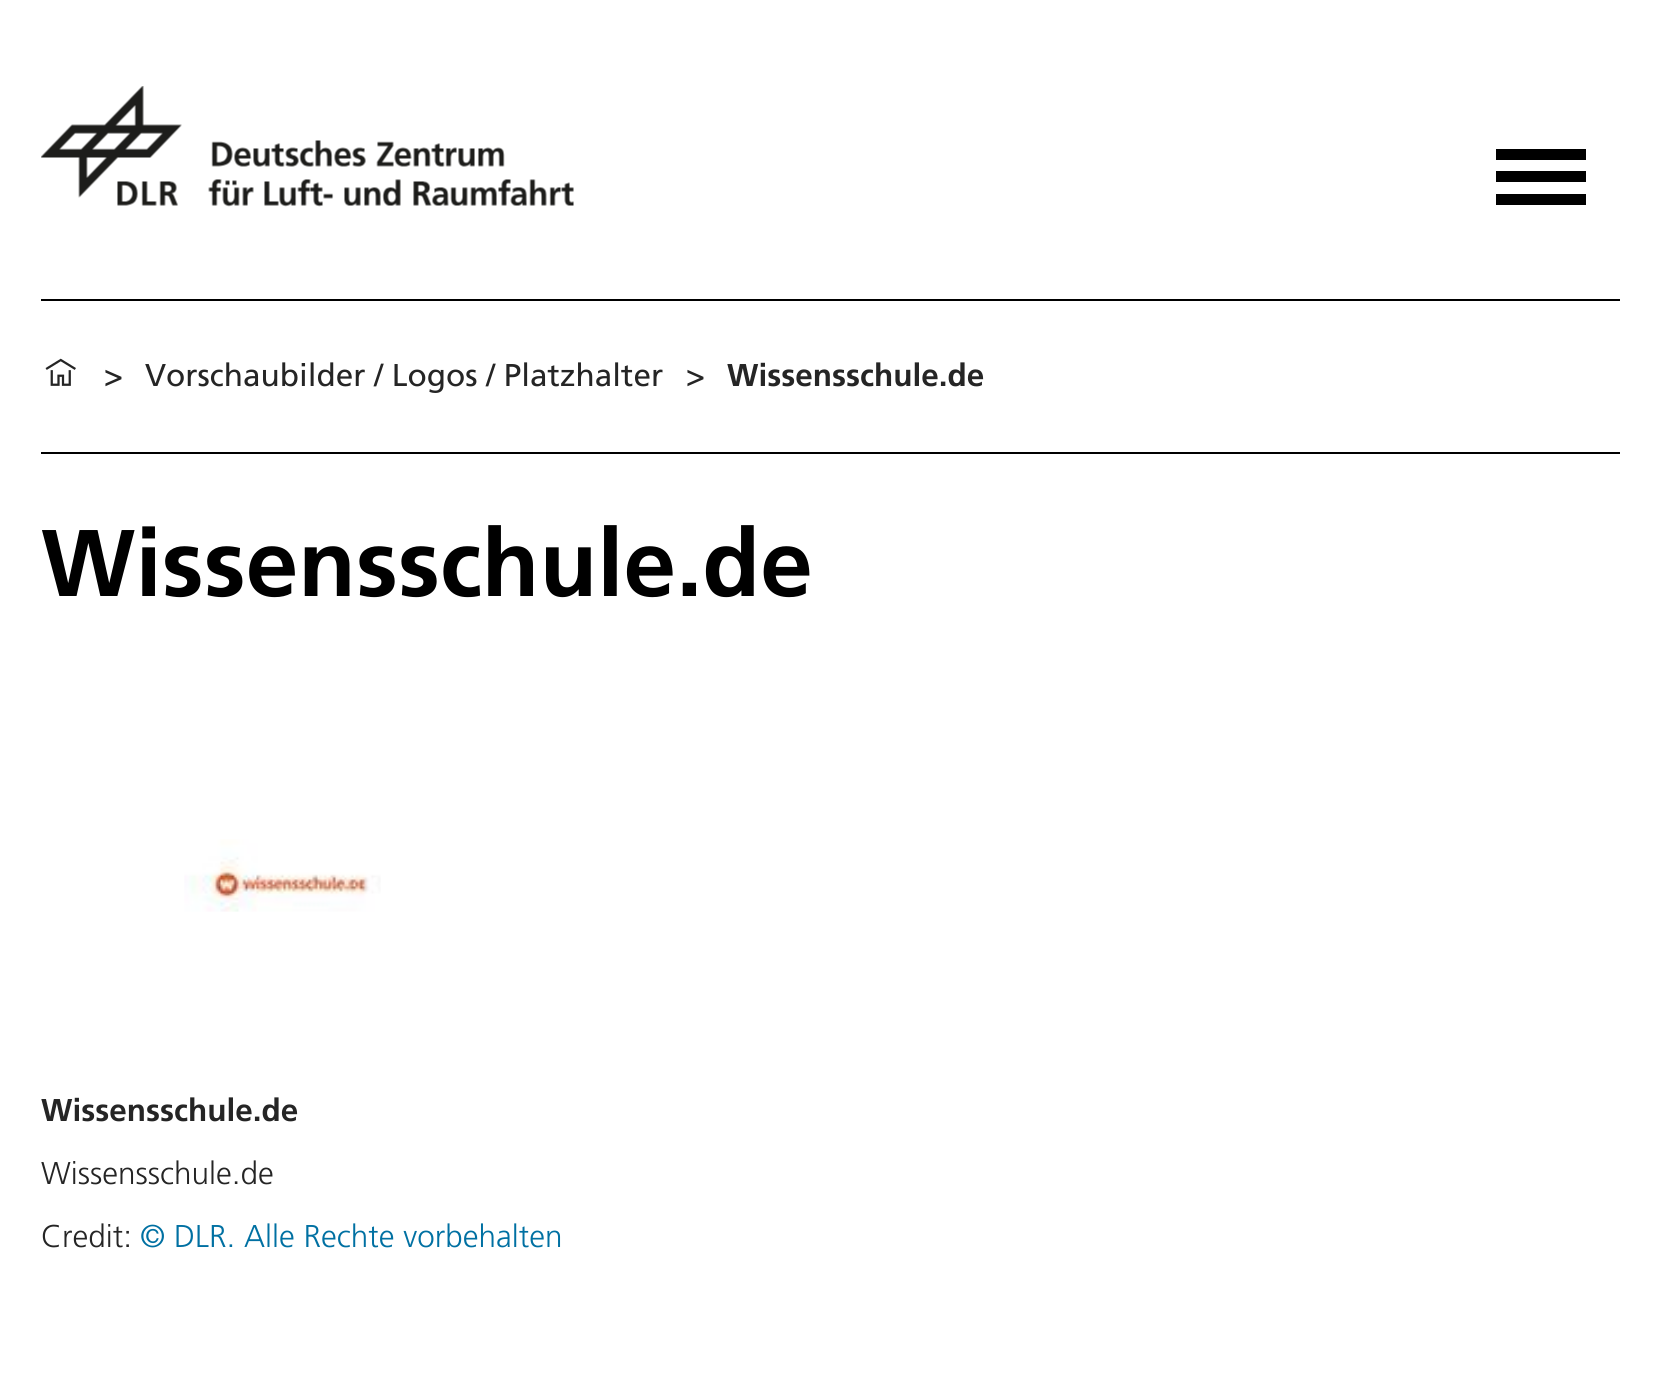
#include <cairo.h>
#include <math.h>
#include <stddef.h>


static void rgb(cairo_t *cr, int r, int g, int b)
{
	cairo_set_source_rgb(cr, r / 255.0, g / 255.0, b / 255.0);
}

static void face(cairo_t *cr, const char *family, double size, int italic, int bold)
{
	cairo_select_font_face(cr, family, italic ? CAIRO_FONT_SLANT_ITALIC : CAIRO_FONT_SLANT_NORMAL,
		bold ? CAIRO_FONT_WEIGHT_BOLD : CAIRO_FONT_WEIGHT_NORMAL);
	cairo_set_font_size(cr, size);
}

static void label(cairo_t *cr, double x, double y, const char *s)
{
	cairo_move_to(cr, x, y);
	cairo_show_text(cr, s);
}

static void rect(cairo_t *cr, double x, double y, double w, double h)
{
	cairo_rectangle(cr, x, y, w, h);
	cairo_fill(cr);
}

static void image(cairo_t *cr, const char *path, double x, double y, double w, double h)
{
	cairo_surface_t *image = cairo_image_surface_create_from_png(path);
	cairo_save(cr);
	cairo_set_source_surface(cr, image, x, y);
	cairo_rectangle(cr, x, y, w, h);
	cairo_fill(cr);
	cairo_restore(cr);
	cairo_surface_destroy(image);
}

static void draw(cairo_t *cr) {
	rgb(cr, 255, 255, 255);
	cairo_paint(cr);
	image(cr, "image0.png", 41, 86, 533, 121);
	rgb(cr, 0, 0, 0);
	rect(cr, 1496, 194, 90, 11);
	rect(cr, 1496, 149, 90, 11);
	rect(cr, 1496, 171, 90, 11);
	rect(cr, 41, 299, 1579, 2);
	rect(cr, 41, 452, 1579, 2);
	image(cr, "image1.png", 45, 358, 31, 28);
	face(cr, "Frutiger", 31.5, 0, 0);
	rgb(cr, 37, 37, 37);
	label(cr, 104, 386, ">");
	label(cr, 145, 386, "Vorschaubilder / Logos / Platzhalter");
	label(cr, 686, 386, ">");
	face(cr, "Frutiger", 31.5, 0, 1);
	label(cr, 727, 386, "Wissensschule.de");
	face(cr, "Frutiger", 94.5, 0, 1);
	rgb(cr, 0, 0, 0);
	label(cr, 41, 596, "Wissensschule.de");
	image(cr, "image2.png", 184, 839, 197, 73);
	face(cr, "Frutiger", 31.5, 0, 1);
	rgb(cr, 37, 37, 37);
	label(cr, 41, 1121, "Wissensschule.de");
	face(cr, "Frutiger Light", 31.5, 0, 0);
	label(cr, 41, 1184, "Wissensschule.de");
	label(cr, 41, 1247, "Credit:");
	rgb(cr, 0, 112, 162);
	label(cr, 140, 1247, "© DLR. Alle Rechte vorbehalten");
}

int main(void) {
	cairo_surface_t *surface = cairo_image_surface_create(CAIRO_FORMAT_RGB24, 1659, 1385);
	cairo_t *cr = cairo_create(surface);
	cairo_font_options_t *options = cairo_font_options_create();
	cairo_font_options_set_hint_metrics(options, CAIRO_HINT_METRICS_OFF);
	cairo_font_options_set_hint_style(options, CAIRO_HINT_STYLE_NONE);
	cairo_set_font_options(cr, options);
	cairo_set_miter_limit(cr, 4);
	draw(cr);
	cairo_surface_write_to_png(surface, "render.png");
	cairo_font_options_destroy(options);
	cairo_destroy(cr);
	cairo_surface_destroy(surface);
	return 0;
}
